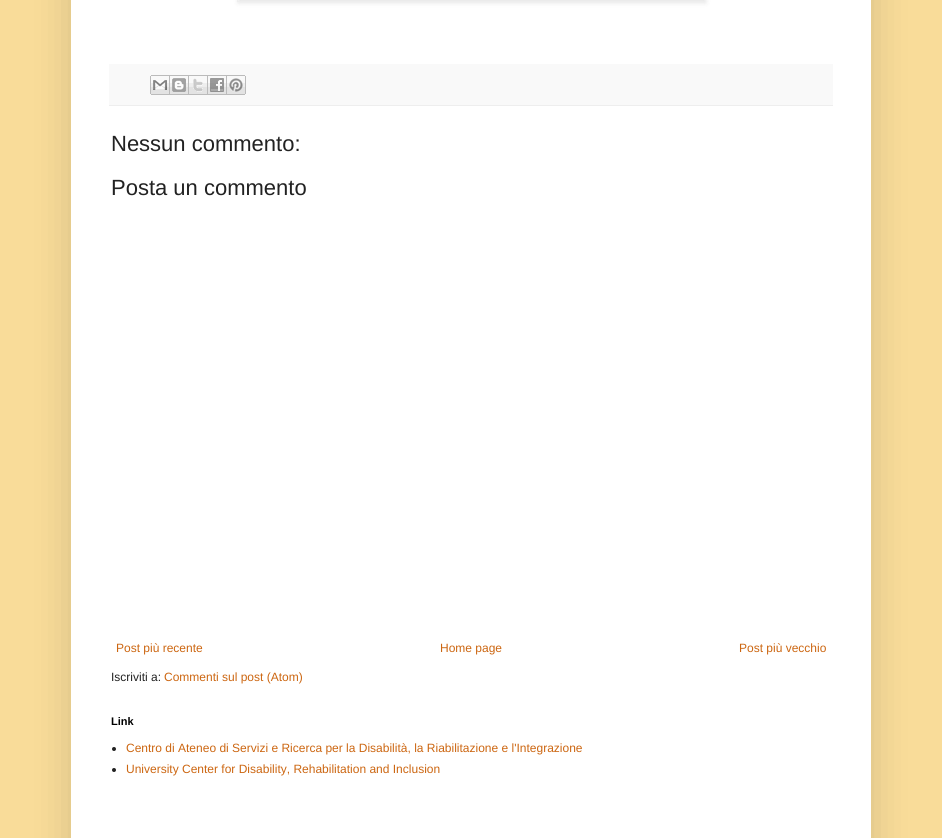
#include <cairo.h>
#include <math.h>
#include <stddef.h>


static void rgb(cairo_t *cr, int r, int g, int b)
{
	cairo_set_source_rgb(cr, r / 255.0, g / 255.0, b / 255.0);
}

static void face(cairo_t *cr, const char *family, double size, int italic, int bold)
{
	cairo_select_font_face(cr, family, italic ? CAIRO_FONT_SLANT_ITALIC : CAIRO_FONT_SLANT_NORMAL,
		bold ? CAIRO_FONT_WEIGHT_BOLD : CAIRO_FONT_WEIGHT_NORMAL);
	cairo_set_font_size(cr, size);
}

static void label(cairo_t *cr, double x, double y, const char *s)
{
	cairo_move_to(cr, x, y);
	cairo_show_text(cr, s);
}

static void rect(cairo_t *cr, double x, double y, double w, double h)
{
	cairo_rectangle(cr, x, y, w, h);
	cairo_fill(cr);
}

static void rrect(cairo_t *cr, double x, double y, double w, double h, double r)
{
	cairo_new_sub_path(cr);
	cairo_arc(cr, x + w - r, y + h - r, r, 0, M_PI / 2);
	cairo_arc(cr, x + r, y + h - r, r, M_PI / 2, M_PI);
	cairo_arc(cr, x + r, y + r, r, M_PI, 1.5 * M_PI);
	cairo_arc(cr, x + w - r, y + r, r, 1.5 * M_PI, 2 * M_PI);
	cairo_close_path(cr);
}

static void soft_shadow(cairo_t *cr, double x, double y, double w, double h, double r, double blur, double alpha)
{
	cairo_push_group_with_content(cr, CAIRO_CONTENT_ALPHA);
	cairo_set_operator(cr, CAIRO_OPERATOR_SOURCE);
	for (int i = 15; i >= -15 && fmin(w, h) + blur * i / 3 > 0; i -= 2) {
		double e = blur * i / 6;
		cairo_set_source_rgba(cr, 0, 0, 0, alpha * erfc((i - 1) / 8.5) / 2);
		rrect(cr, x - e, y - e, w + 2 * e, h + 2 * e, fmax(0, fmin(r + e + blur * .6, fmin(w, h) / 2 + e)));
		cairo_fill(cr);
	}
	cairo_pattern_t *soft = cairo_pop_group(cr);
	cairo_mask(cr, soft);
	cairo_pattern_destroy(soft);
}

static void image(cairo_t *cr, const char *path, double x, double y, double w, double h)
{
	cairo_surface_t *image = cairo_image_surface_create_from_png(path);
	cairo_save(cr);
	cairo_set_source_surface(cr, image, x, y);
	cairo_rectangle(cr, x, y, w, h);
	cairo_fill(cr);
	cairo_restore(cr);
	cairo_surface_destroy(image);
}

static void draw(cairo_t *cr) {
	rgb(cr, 249, 220, 153);
	cairo_paint(cr);
	rgb(cr, 0, 0, 0);
	soft_shadow(cr, 71, -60, 800, 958, 0, 20, 0.15);
	rgb(cr, 255, 255, 255);
	rect(cr, 71, 0, 800, 838);
	rgb(cr, 0, 0, 0);
	soft_shadow(cr, 238, -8, 468, 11, 0, 2.5, 0.1);
	cairo_rectangle(cr, 237.5, -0.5, 467, 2);
	rgb(cr, 238, 238, 238);
	cairo_set_line_width(cr, 1);
	cairo_stroke(cr);
	rgb(cr, 249, 249, 249);
	rect(cr, 109, 64, 724, 41);
	rgb(cr, 238, 238, 238);
	rect(cr, 109, 105, 724, 1);
	image(cr, "image0.png", 150, 75, 20, 20);
	image(cr, "image1.png", 170, 75, 19, 20);
	image(cr, "image2.png", 189, 75, 19, 20);
	image(cr, "image3.png", 208, 75, 19, 20);
	image(cr, "image4.png", 227, 75, 19, 20);
	face(cr, "Liberation Sans", 22, 0, 0);
	rgb(cr, 34, 34, 34);
	label(cr, 111, 151, "Nessun commento:");
	label(cr, 111, 195, "Posta un commento");
	face(cr, "Liberation Sans", 12, 0, 0);
	rgb(cr, 204, 102, 17);
	label(cr, 116, 652, "Post più recente");
	label(cr, 440, 652, "Home page");
	label(cr, 739, 652, "Post più vecchio");
	rgb(cr, 34, 34, 34);
	label(cr, 111, 681, "Iscriviti a:");
	rgb(cr, 204, 102, 17);
	label(cr, 164, 681, "Commenti sul post (Atom)");
	face(cr, "Liberation Sans", 11, 0, 1);
	rgb(cr, 0, 0, 0);
	label(cr, 111, 725, "Link");
	rgb(cr, 34, 34, 34);
	cairo_new_path(cr);
	cairo_arc(cr, 114, 749, 2, 0, 2 * M_PI);
	cairo_fill(cr);
	face(cr, "Liberation Sans", 12, 0, 0);
	rgb(cr, 204, 102, 17);
	label(cr, 126, 752, "Centro di Ateneo di Servizi e Ricerca per la Disabilità, la Riabilitazione e l'Integrazione");
	rgb(cr, 34, 34, 34);
	cairo_new_path(cr);
	cairo_arc(cr, 114, 770, 2, 0, 2 * M_PI);
	cairo_fill(cr);
	rgb(cr, 204, 102, 17);
	label(cr, 126, 773, "University Center for Disability, Rehabilitation and Inclusion");
}

int main(void) {
	cairo_surface_t *surface = cairo_image_surface_create(CAIRO_FORMAT_RGB24, 942, 838);
	cairo_t *cr = cairo_create(surface);
	cairo_font_options_t *options = cairo_font_options_create();
	cairo_font_options_set_hint_metrics(options, CAIRO_HINT_METRICS_OFF);
	cairo_font_options_set_hint_style(options, CAIRO_HINT_STYLE_NONE);
	cairo_set_font_options(cr, options);
	cairo_set_miter_limit(cr, 4);
	draw(cr);
	cairo_surface_write_to_png(surface, "render.png");
	cairo_font_options_destroy(options);
	cairo_destroy(cr);
	cairo_surface_destroy(surface);
	return 0;
}
